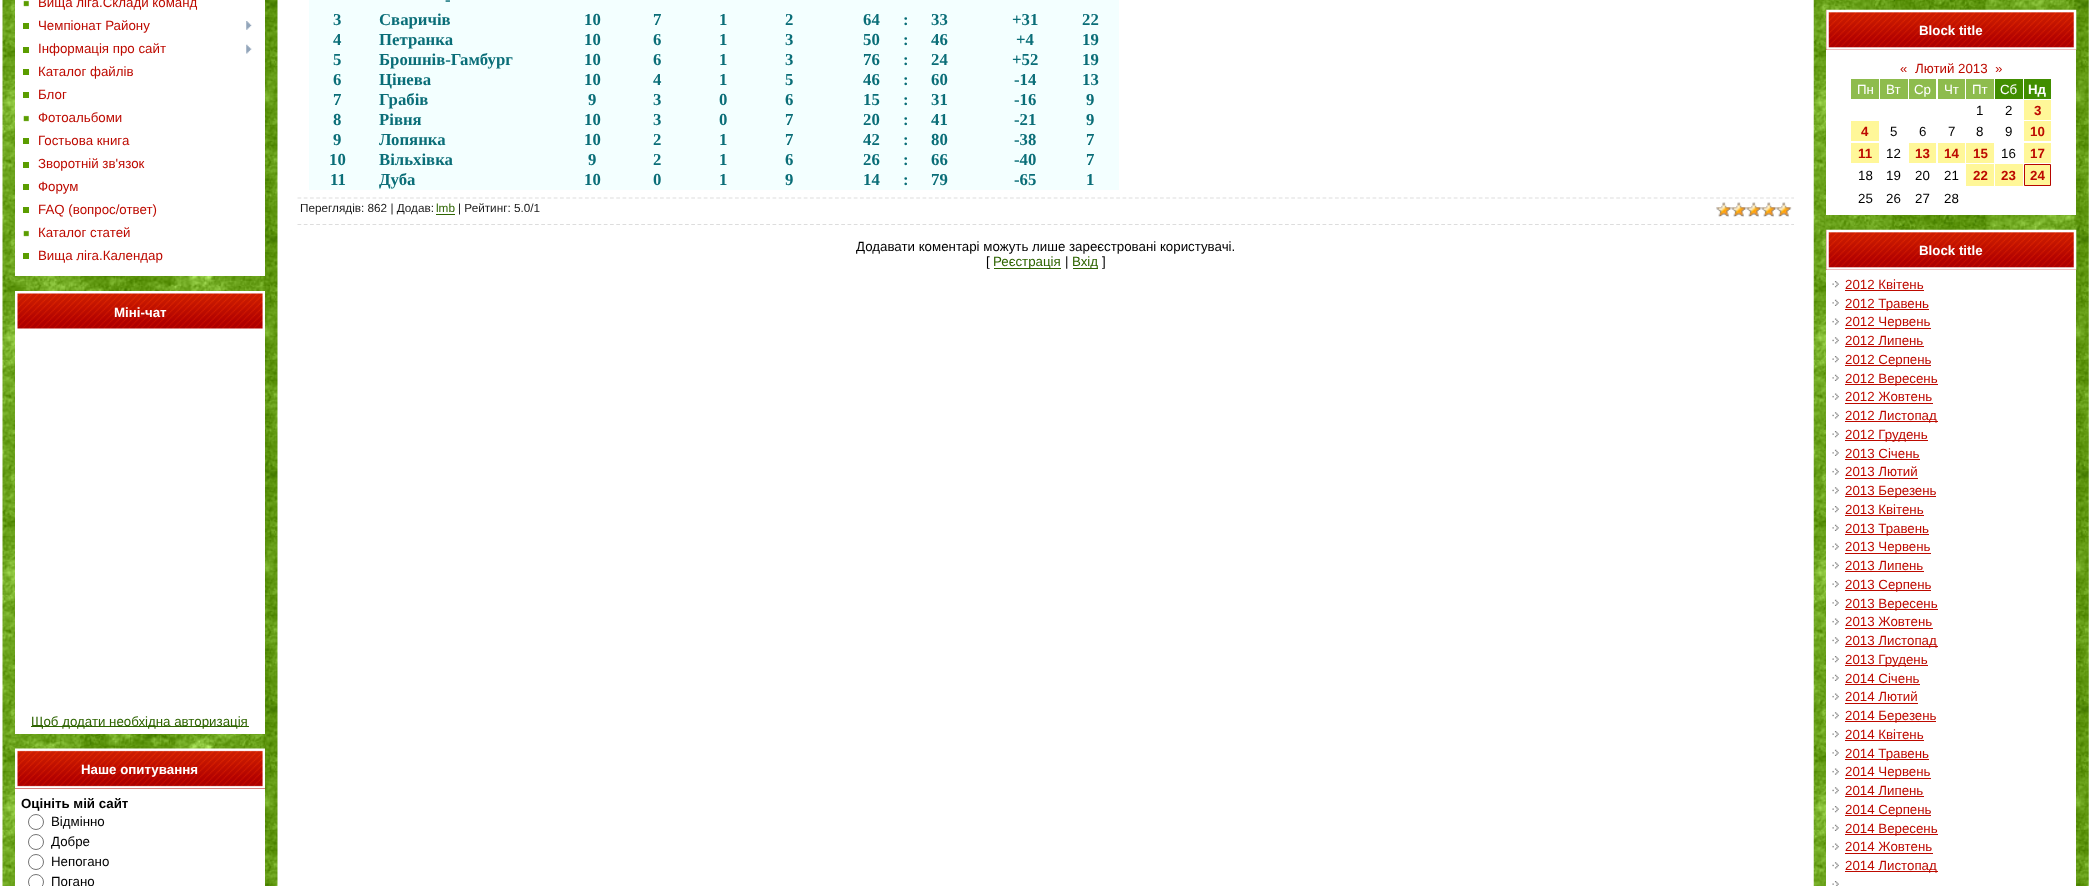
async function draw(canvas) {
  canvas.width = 2091;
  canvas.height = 886;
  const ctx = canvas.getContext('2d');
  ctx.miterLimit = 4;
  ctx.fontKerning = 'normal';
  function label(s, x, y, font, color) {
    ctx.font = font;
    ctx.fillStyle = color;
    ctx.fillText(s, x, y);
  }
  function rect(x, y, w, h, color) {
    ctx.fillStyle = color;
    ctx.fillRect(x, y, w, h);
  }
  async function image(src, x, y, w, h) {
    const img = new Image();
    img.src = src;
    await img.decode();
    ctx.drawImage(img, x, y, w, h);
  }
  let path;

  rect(0, 0, 2091, 886, '#fff');
  await image('assets/img1.png', 2, 0, 276, 886);
  rect(15, 0, 250, 276, '#fff');
  await image('assets/img2.png', 23, 0, 6, 7);
  label('Вища ліга.Склади команд', 38, 7, '13.3px Liberation Sans', '#bd0a00');
  rect(23, 23, 6, 6, '#5b9d00');
  label('Чемпіонат Району', 38, 30, '13.3px Liberation Sans', '#bd0a00');
  await image('assets/img3.png', 246, 21, 6, 9);
  rect(23, 47, 6, 6, '#5b9d00');
  label('Інформація про сайт', 38, 53, '13.3px Liberation Sans', '#bd0a00');
  await image('assets/img4.png', 246, 44, 6, 10);
  rect(23, 69, 6, 6, '#5b9d00');
  label('Каталог файлів', 38, 76, '13.3px Liberation Sans', '#bd0a00');
  rect(23, 92, 6, 6, '#5b9d00');
  label('Блог', 38, 99, '13.3px Liberation Sans', '#bd0a00');
  await image('assets/img2.png', 23, 115, 6, 7);
  label('Фотоальбоми', 38, 122, '13.3px Liberation Sans', '#bd0a00');
  rect(23, 138, 6, 6, '#5b9d00');
  label('Гостьова книга', 38, 145, '13.3px Liberation Sans', '#bd0a00');
  rect(23, 162, 6, 6, '#5b9d00');
  label('Зворотній зв\'язок', 38, 168, '13.3px Liberation Sans', '#bd0a00');
  rect(23, 184, 6, 6, '#5b9d00');
  label('Форум', 38, 191, '13.3px Liberation Sans', '#bd0a00');
  rect(23, 207, 6, 6, '#5b9d00');
  label('FAQ (вопрос/ответ)', 38, 214, '13.3px Liberation Sans', '#bd0a00');
  await image('assets/img2.png', 23, 230, 6, 7);
  label('Каталог статей', 38, 237, '13.3px Liberation Sans', '#bd0a00');
  rect(23, 253, 6, 6, '#5b9d00');
  label('Вища ліга.Календар', 38, 260, '13.3px Liberation Sans', '#bd0a00');
  await image('assets/img5.png', 15, 291, 250, 40);
  label('Міні-чат', 114, 317, 'bold 13.3px Liberation Sans', '#fff');
  rect(15, 331, 250, 403, '#fff');
  rect(31, 726, 218, 1, '#2e6400');
  label('Щоб додати необхідна авторизація', 31, 726, '13.3px Liberation Sans', '#2e6400');
  rect(15, 788, 250, 1, '#ae0000');
  await image('assets/img6.png', 15, 748, 250, 41);
  label('Наше опитування', 81, 774, 'bold 13.3px Liberation Sans', '#fff');
  rect(15, 789, 250, 97, '#fff');
  label('Оцініть мій сайт', 21, 808, 'bold 13.3px Liberation Sans', '#000');
  ctx.beginPath();
  ctx.arc(36, 822, 7.5, 0, 2 * Math.PI);
  ctx.strokeStyle = '#767676';
  ctx.stroke();
  label('Відмінно', 51, 826, '13.3px Liberation Sans', '#000');
  ctx.beginPath();
  ctx.arc(36, 842, 7.5, 0, 2 * Math.PI);
  ctx.stroke();
  label('Добре', 51, 846, '13.3px Liberation Sans', '#000');
  ctx.beginPath();
  ctx.arc(36, 862, 7.5, 0, 2 * Math.PI);
  ctx.stroke();
  label('Непогано', 51, 866, '13.3px Liberation Sans', '#000');
  ctx.beginPath();
  ctx.arc(36, 882, 7.5, 0, 2 * Math.PI);
  ctx.stroke();
  label('Погано', 51, 886, '13.3px Liberation Sans', '#000');
  rect(309, 0, 810, 10, '#f3ffff');
  label('-', 445, 5, 'bold 16.75px Liberation Serif', '#0a6e78');
  rect(309, 10, 810, 20, '#f3ffff');
  label('3', 333, 25, 'bold 16.75px Liberation Serif', '#0a6e78');
  label('Сваричів', 379, 25, 'bold 16.75px Liberation Serif', '#0a6e78');
  label('10', 584, 25, 'bold 16.75px Liberation Serif', '#0a6e78');
  label('7', 653, 25, 'bold 16.75px Liberation Serif', '#0a6e78');
  label('1', 719, 25, 'bold 16.75px Liberation Serif', '#0a6e78');
  label('2', 785, 25, 'bold 16.75px Liberation Serif', '#0a6e78');
  label('64', 863, 25, 'bold 16.75px Liberation Serif', '#0a6e78');
  label(':', 903, 25, 'bold 16.75px Liberation Serif', '#0a6e78');
  label('33', 931, 25, 'bold 16.75px Liberation Serif', '#0a6e78');
  label('+31', 1012, 25, 'bold 16.75px Liberation Serif', '#0a6e78');
  label('22', 1082, 25, 'bold 16.75px Liberation Serif', '#0a6e78');
  rect(309, 30, 810, 20, '#f3ffff');
  label('4', 333, 45, 'bold 16.75px Liberation Serif', '#0a6e78');
  label('Петранка', 379, 45, 'bold 16.75px Liberation Serif', '#0a6e78');
  label('10', 584, 45, 'bold 16.75px Liberation Serif', '#0a6e78');
  label('6', 653, 45, 'bold 16.75px Liberation Serif', '#0a6e78');
  label('1', 719, 45, 'bold 16.75px Liberation Serif', '#0a6e78');
  label('3', 785, 45, 'bold 16.75px Liberation Serif', '#0a6e78');
  label('50', 863, 45, 'bold 16.75px Liberation Serif', '#0a6e78');
  label(':', 903, 45, 'bold 16.75px Liberation Serif', '#0a6e78');
  label('46', 931, 45, 'bold 16.75px Liberation Serif', '#0a6e78');
  label('+4', 1016, 45, 'bold 16.75px Liberation Serif', '#0a6e78');
  label('19', 1082, 45, 'bold 16.75px Liberation Serif', '#0a6e78');
  rect(309, 50, 810, 20, '#f3ffff');
  label('5', 333, 65, 'bold 16.75px Liberation Serif', '#0a6e78');
  label('Брошнів-Гамбург', 379, 65, 'bold 16.75px Liberation Serif', '#0a6e78');
  label('10', 584, 65, 'bold 16.75px Liberation Serif', '#0a6e78');
  label('6', 653, 65, 'bold 16.75px Liberation Serif', '#0a6e78');
  label('1', 719, 65, 'bold 16.75px Liberation Serif', '#0a6e78');
  label('3', 785, 65, 'bold 16.75px Liberation Serif', '#0a6e78');
  label('76', 863, 65, 'bold 16.75px Liberation Serif', '#0a6e78');
  label(':', 903, 65, 'bold 16.75px Liberation Serif', '#0a6e78');
  label('24', 931, 65, 'bold 16.75px Liberation Serif', '#0a6e78');
  label('+52', 1012, 65, 'bold 16.75px Liberation Serif', '#0a6e78');
  label('19', 1082, 65, 'bold 16.75px Liberation Serif', '#0a6e78');
  rect(309, 70, 810, 20, '#f3ffff');
  label('6', 333, 85, 'bold 16.75px Liberation Serif', '#0a6e78');
  label('Цінева', 379, 85, 'bold 16.75px Liberation Serif', '#0a6e78');
  label('10', 584, 85, 'bold 16.75px Liberation Serif', '#0a6e78');
  label('4', 653, 85, 'bold 16.75px Liberation Serif', '#0a6e78');
  label('1', 719, 85, 'bold 16.75px Liberation Serif', '#0a6e78');
  label('5', 785, 85, 'bold 16.75px Liberation Serif', '#0a6e78');
  label('46', 863, 85, 'bold 16.75px Liberation Serif', '#0a6e78');
  label(':', 903, 85, 'bold 16.75px Liberation Serif', '#0a6e78');
  label('60', 931, 85, 'bold 16.75px Liberation Serif', '#0a6e78');
  label('-14', 1014, 85, 'bold 16.75px Liberation Serif', '#0a6e78');
  label('13', 1082, 85, 'bold 16.75px Liberation Serif', '#0a6e78');
  rect(309, 90, 810, 20, '#f3ffff');
  label('7', 333, 105, 'bold 16.75px Liberation Serif', '#0a6e78');
  label('Грабів', 379, 105, 'bold 16.75px Liberation Serif', '#0a6e78');
  label('9', 588, 105, 'bold 16.75px Liberation Serif', '#0a6e78');
  label('3', 653, 105, 'bold 16.75px Liberation Serif', '#0a6e78');
  label('0', 719, 105, 'bold 16.75px Liberation Serif', '#0a6e78');
  label('6', 785, 105, 'bold 16.75px Liberation Serif', '#0a6e78');
  label('15', 863, 105, 'bold 16.75px Liberation Serif', '#0a6e78');
  label(':', 903, 105, 'bold 16.75px Liberation Serif', '#0a6e78');
  label('31', 931, 105, 'bold 16.75px Liberation Serif', '#0a6e78');
  label('-16', 1014, 105, 'bold 16.75px Liberation Serif', '#0a6e78');
  label('9', 1086, 105, 'bold 16.75px Liberation Serif', '#0a6e78');
  rect(309, 110, 810, 20, '#f3ffff');
  label('8', 333, 125, 'bold 16.75px Liberation Serif', '#0a6e78');
  label('Рівня', 379, 125, 'bold 16.75px Liberation Serif', '#0a6e78');
  label('10', 584, 125, 'bold 16.75px Liberation Serif', '#0a6e78');
  label('3', 653, 125, 'bold 16.75px Liberation Serif', '#0a6e78');
  label('0', 719, 125, 'bold 16.75px Liberation Serif', '#0a6e78');
  label('7', 785, 125, 'bold 16.75px Liberation Serif', '#0a6e78');
  label('20', 863, 125, 'bold 16.75px Liberation Serif', '#0a6e78');
  label(':', 903, 125, 'bold 16.75px Liberation Serif', '#0a6e78');
  label('41', 931, 125, 'bold 16.75px Liberation Serif', '#0a6e78');
  label('-21', 1014, 125, 'bold 16.75px Liberation Serif', '#0a6e78');
  label('9', 1086, 125, 'bold 16.75px Liberation Serif', '#0a6e78');
  rect(309, 130, 810, 20, '#f3ffff');
  label('9', 333, 145, 'bold 16.75px Liberation Serif', '#0a6e78');
  label('Лопянка', 379, 145, 'bold 16.75px Liberation Serif', '#0a6e78');
  label('10', 584, 145, 'bold 16.75px Liberation Serif', '#0a6e78');
  label('2', 653, 145, 'bold 16.75px Liberation Serif', '#0a6e78');
  label('1', 719, 145, 'bold 16.75px Liberation Serif', '#0a6e78');
  label('7', 785, 145, 'bold 16.75px Liberation Serif', '#0a6e78');
  label('42', 863, 145, 'bold 16.75px Liberation Serif', '#0a6e78');
  label(':', 903, 145, 'bold 16.75px Liberation Serif', '#0a6e78');
  label('80', 931, 145, 'bold 16.75px Liberation Serif', '#0a6e78');
  label('-38', 1014, 145, 'bold 16.75px Liberation Serif', '#0a6e78');
  label('7', 1086, 145, 'bold 16.75px Liberation Serif', '#0a6e78');
  rect(309, 150, 810, 20, '#f3ffff');
  label('10', 329, 165, 'bold 16.75px Liberation Serif', '#0a6e78');
  label('Вільхівка', 379, 165, 'bold 16.75px Liberation Serif', '#0a6e78');
  label('9', 588, 165, 'bold 16.75px Liberation Serif', '#0a6e78');
  label('2', 653, 165, 'bold 16.75px Liberation Serif', '#0a6e78');
  label('1', 719, 165, 'bold 16.75px Liberation Serif', '#0a6e78');
  label('6', 785, 165, 'bold 16.75px Liberation Serif', '#0a6e78');
  label('26', 863, 165, 'bold 16.75px Liberation Serif', '#0a6e78');
  label(':', 903, 165, 'bold 16.75px Liberation Serif', '#0a6e78');
  label('66', 931, 165, 'bold 16.75px Liberation Serif', '#0a6e78');
  label('-40', 1014, 165, 'bold 16.75px Liberation Serif', '#0a6e78');
  label('7', 1086, 165, 'bold 16.75px Liberation Serif', '#0a6e78');
  rect(309, 170, 810, 20, '#f3ffff');
  label('11', 330, 185, 'bold 16.75px Liberation Serif', '#0a6e78');
  label('Дуба', 379, 185, 'bold 16.75px Liberation Serif', '#0a6e78');
  label('10', 584, 185, 'bold 16.75px Liberation Serif', '#0a6e78');
  label('0', 653, 185, 'bold 16.75px Liberation Serif', '#0a6e78');
  label('1', 719, 185, 'bold 16.75px Liberation Serif', '#0a6e78');
  label('9', 785, 185, 'bold 16.75px Liberation Serif', '#0a6e78');
  label('14', 863, 185, 'bold 16.75px Liberation Serif', '#0a6e78');
  label(':', 903, 185, 'bold 16.75px Liberation Serif', '#0a6e78');
  label('79', 931, 185, 'bold 16.75px Liberation Serif', '#0a6e78');
  label('-65', 1014, 185, 'bold 16.75px Liberation Serif', '#0a6e78');
  label('1', 1086, 185, 'bold 16.75px Liberation Serif', '#0a6e78');
  path = new Path2D('M297.5 198H1794');
  ctx.strokeStyle = '#ddd';
  ctx.lineWidth = 1.2;
  ctx.setLineDash([3.75, 2.5]);
  ctx.stroke(path);
  path = new Path2D('M297.5 224.5H1794');
  ctx.stroke(path);
  label('Переглядів: 862 | Додав:', 300, 212, '11.75px Liberation Sans', '#1a1a1a');
  label('lmb', 436, 212, '11.75px Liberation Sans', '#2e6400');
  rect(436, 214, 19, 1, '#2e6400');
  label('| Рейтинг: 5.0/1', 458, 212, '11.75px Liberation Sans', '#1a1a1a');
  await image('assets/img7.png', 1716, 202, 75, 16);
  await image('assets/img8.png', 1716, 202, 76, 15);
  label('Додавати коментарі можуть лише зареєстровані користувачі.', 856, 251, '13.3px Liberation Sans', '#000');
  label('[', 986, 266, '13.3px Liberation Sans', '#000');
  rect(994, 268, 67, 1, '#2e6400');
  label('Реєстрація', 993, 266, '13.3px Liberation Sans', '#2e6400');
  label('|', 1065, 266, '13.3px Liberation Sans', '#000');
  rect(1073, 268, 25, 1, '#2e6400');
  label('Вхід', 1072, 266, '13.3px Liberation Sans', '#2e6400');
  label(']', 1102, 266, '13.3px Liberation Sans', '#000');
  await image('assets/img9.png', 1813, 0, 276, 886);
  rect(1826, 10, 250, 40, '#ae0000');
  await image('assets/img10.png', 1826, 9, 251, 41);
  label('Block title', 1919, 35, 'bold 13.3px Liberation Sans', '#fff');
  rect(1826, 50, 250, 165, '#fff');
  label('«', 1900, 73, '13.3px Liberation Sans', '#bd0a00');
  label('Лютий 2013', 1915, 73, '13.3px Liberation Sans', '#bd0a00');
  label('»', 1995, 73, '13.3px Liberation Sans', '#bd0a00');
  rect(1851, 79, 28, 20, '#8ebc4d');
  label('Пн', 1857, 94, '13.3px Liberation Sans', '#fff');
  rect(1880, 79, 28, 20, '#8ebc4d');
  label('Вт', 1886, 94, '13.3px Liberation Sans', '#fff');
  rect(1909, 79, 27, 20, '#8ebc4d');
  label('Ср', 1914, 94, '13.3px Liberation Sans', '#fff');
  rect(1938, 79, 27, 20, '#8ebc4d');
  label('Чт', 1944, 94, '13.3px Liberation Sans', '#fff');
  rect(1966, 79, 28, 20, '#8ebc4d');
  label('Пт', 1972, 94, '13.3px Liberation Sans', '#fff');
  rect(1995, 79, 28, 20, '#418e00');
  label('Сб', 2000, 94, '13.3px Liberation Sans', '#fff');
  rect(2024, 79, 27, 20, '#418e00');
  label('Нд', 2028, 94, 'bold 13.3px Liberation Sans', '#fff');
  label('1', 1976, 115, '13.3px Liberation Sans', '#000');
  label('2', 2005, 115, '13.3px Liberation Sans', '#000');
  rect(2024, 100, 27, 20, '#fff799');
  label('3', 2034, 115, 'bold 13.3px Liberation Sans', '#bd0a00');
  rect(1851, 121, 28, 20, '#fff799');
  label('4', 1861, 136, 'bold 13.3px Liberation Sans', '#bd0a00');
  label('5', 1890, 136, '13.3px Liberation Sans', '#000');
  label('6', 1919, 136, '13.3px Liberation Sans', '#000');
  label('7', 1948, 136, '13.3px Liberation Sans', '#000');
  label('8', 1976, 136, '13.3px Liberation Sans', '#000');
  label('9', 2005, 136, '13.3px Liberation Sans', '#000');
  rect(2024, 121, 27, 20, '#fff799');
  label('10', 2030, 136, 'bold 13.3px Liberation Sans', '#bd0a00');
  rect(1851, 143, 28, 20, '#fff799');
  label('11', 1858, 158, 'bold 13.3px Liberation Sans', '#bd0a00');
  label('12', 1886, 158, '13.3px Liberation Sans', '#000');
  rect(1909, 143, 27, 20, '#fff799');
  label('13', 1915, 158, 'bold 13.3px Liberation Sans', '#bd0a00');
  rect(1938, 143, 27, 20, '#fff799');
  label('14', 1944, 158, 'bold 13.3px Liberation Sans', '#bd0a00');
  rect(1966, 143, 28, 20, '#fff799');
  label('15', 1973, 158, 'bold 13.3px Liberation Sans', '#bd0a00');
  label('16', 2001, 158, '13.3px Liberation Sans', '#000');
  rect(2024, 143, 27, 20, '#fff799');
  label('17', 2030, 158, 'bold 13.3px Liberation Sans', '#bd0a00');
  label('18', 1858, 180, '13.3px Liberation Sans', '#000');
  label('19', 1886, 180, '13.3px Liberation Sans', '#000');
  label('20', 1915, 180, '13.3px Liberation Sans', '#000');
  label('21', 1944, 180, '13.3px Liberation Sans', '#000');
  rect(1966, 164, 28, 22, '#fff799');
  label('22', 1973, 180, 'bold 13.3px Liberation Sans', '#bd0a00');
  rect(1995, 164, 28, 22, '#fff799');
  label('23', 2001, 180, 'bold 13.3px Liberation Sans', '#bd0a00');
  ctx.fillStyle = '#fff799';
  ctx.beginPath();
  ctx.rect(2024.5, 164.5, 26, 21);
  ctx.fill();
  ctx.strokeStyle = '#b60600';
  ctx.lineWidth = 1;
  ctx.setLineDash([]);
  ctx.stroke();
  label('24', 2030, 180, 'bold 13.3px Liberation Sans', '#bd0a00');
  label('25', 1858, 203, '13.3px Liberation Sans', '#000');
  label('26', 1886, 203, '13.3px Liberation Sans', '#000');
  label('27', 1915, 203, '13.3px Liberation Sans', '#000');
  label('28', 1944, 203, '13.3px Liberation Sans', '#000');
  rect(1826, 230, 250, 40, '#ae0000');
  await image('assets/img11.png', 1826, 229, 251, 41);
  label('Block title', 1919, 255, 'bold 13.3px Liberation Sans', '#fff');
  rect(1826, 270, 250, 616, '#fff');
  await image('assets/img12.png', 1832, 281, 7, 7);
  label('2012 Квітень', 1845, 289, '13.3px Liberation Sans', '#bd0a00');
  rect(1845, 290, 79, 1, '#bd0a00');
  await image('assets/img13.png', 1832, 299, 7, 7);
  rect(1845, 309, 84, 1, '#bd0a00');
  label('2012 Травень', 1845, 308, '13.3px Liberation Sans', '#bd0a00');
  await image('assets/img14.png', 1832, 318, 7, 7);
  rect(1845, 328, 86, 1, '#bd0a00');
  label('2012 Червень', 1845, 326, '13.3px Liberation Sans', '#bd0a00');
  await image('assets/img15.png', 1832, 337, 7, 7);
  label('2012 Липень', 1845, 345, '13.3px Liberation Sans', '#bd0a00');
  rect(1845, 346, 79, 1, '#bd0a00');
  await image('assets/img12.png', 1832, 356, 7, 7);
  rect(1845, 365, 86, 1, '#bd0a00');
  label('2012 Серпень', 1845, 364, '13.3px Liberation Sans', '#bd0a00');
  await image('assets/img13.png', 1832, 374, 7, 7);
  rect(1845, 384, 93, 1, '#bd0a00');
  label('2012 Вересень', 1845, 383, '13.3px Liberation Sans', '#bd0a00');
  await image('assets/img14.png', 1832, 393, 7, 7);
  label('2012 Жовтень', 1845, 401, '13.3px Liberation Sans', '#bd0a00');
  rect(1845, 403, 88, 1, '#bd0a00');
  await image('assets/img15.png', 1832, 412, 7, 7);
  rect(1845, 421, 93, 1, '#bd0a00');
  label('2012 Листопад', 1845, 420, '13.3px Liberation Sans', '#bd0a00');
  await image('assets/img12.png', 1832, 431, 7, 7);
  rect(1845, 440, 83, 1, '#bd0a00');
  label('2012 Грудень', 1845, 439, '13.3px Liberation Sans', '#bd0a00');
  await image('assets/img13.png', 1832, 449, 7, 7);
  label('2013 Січень', 1845, 458, '13.3px Liberation Sans', '#bd0a00');
  rect(1845, 459, 75, 1, '#bd0a00');
  await image('assets/img14.png', 1832, 468, 7, 7);
  label('2013 Лютий', 1845, 476, '13.3px Liberation Sans', '#bd0a00');
  rect(1845, 478, 73, 1, '#bd0a00');
  await image('assets/img15.png', 1832, 487, 7, 7);
  rect(1845, 496, 91, 1, '#bd0a00');
  label('2013 Березень', 1845, 495, '13.3px Liberation Sans', '#bd0a00');
  await image('assets/img12.png', 1832, 506, 7, 7);
  label('2013 Квітень', 1845, 514, '13.3px Liberation Sans', '#bd0a00');
  rect(1845, 515, 79, 1, '#bd0a00');
  await image('assets/img13.png', 1832, 524, 7, 7);
  rect(1845, 534, 84, 1, '#bd0a00');
  label('2013 Травень', 1845, 533, '13.3px Liberation Sans', '#bd0a00');
  await image('assets/img14.png', 1832, 543, 7, 7);
  rect(1845, 553, 86, 1, '#bd0a00');
  label('2013 Червень', 1845, 551, '13.3px Liberation Sans', '#bd0a00');
  await image('assets/img15.png', 1832, 562, 7, 7);
  label('2013 Липень', 1845, 570, '13.3px Liberation Sans', '#bd0a00');
  rect(1845, 571, 79, 1, '#bd0a00');
  await image('assets/img12.png', 1832, 581, 7, 7);
  rect(1845, 590, 86, 1, '#bd0a00');
  label('2013 Серпень', 1845, 589, '13.3px Liberation Sans', '#bd0a00');
  await image('assets/img13.png', 1832, 599, 7, 7);
  rect(1845, 609, 93, 1, '#bd0a00');
  label('2013 Вересень', 1845, 608, '13.3px Liberation Sans', '#bd0a00');
  await image('assets/img14.png', 1832, 618, 7, 7);
  label('2013 Жовтень', 1845, 626, '13.3px Liberation Sans', '#bd0a00');
  rect(1845, 628, 88, 1, '#bd0a00');
  await image('assets/img15.png', 1832, 637, 7, 7);
  rect(1845, 646, 93, 1, '#bd0a00');
  label('2013 Листопад', 1845, 645, '13.3px Liberation Sans', '#bd0a00');
  await image('assets/img12.png', 1832, 656, 7, 7);
  rect(1845, 665, 83, 1, '#bd0a00');
  label('2013 Грудень', 1845, 664, '13.3px Liberation Sans', '#bd0a00');
  await image('assets/img13.png', 1832, 674, 7, 7);
  label('2014 Січень', 1845, 683, '13.3px Liberation Sans', '#bd0a00');
  rect(1845, 684, 75, 1, '#bd0a00');
  await image('assets/img14.png', 1832, 693, 7, 7);
  label('2014 Лютий', 1845, 701, '13.3px Liberation Sans', '#bd0a00');
  rect(1845, 703, 73, 1, '#bd0a00');
  await image('assets/img15.png', 1832, 712, 7, 7);
  rect(1845, 721, 91, 1, '#bd0a00');
  label('2014 Березень', 1845, 720, '13.3px Liberation Sans', '#bd0a00');
  await image('assets/img12.png', 1832, 731, 7, 7);
  label('2014 Квітень', 1845, 739, '13.3px Liberation Sans', '#bd0a00');
  rect(1845, 740, 79, 1, '#bd0a00');
  await image('assets/img13.png', 1832, 749, 7, 7);
  rect(1845, 759, 84, 1, '#bd0a00');
  label('2014 Травень', 1845, 758, '13.3px Liberation Sans', '#bd0a00');
  await image('assets/img14.png', 1832, 768, 7, 7);
  rect(1845, 778, 86, 1, '#bd0a00');
  label('2014 Червень', 1845, 776, '13.3px Liberation Sans', '#bd0a00');
  await image('assets/img15.png', 1832, 787, 7, 7);
  label('2014 Липень', 1845, 795, '13.3px Liberation Sans', '#bd0a00');
  rect(1845, 796, 79, 1, '#bd0a00');
  await image('assets/img12.png', 1832, 806, 7, 7);
  rect(1845, 815, 86, 1, '#bd0a00');
  label('2014 Серпень', 1845, 814, '13.3px Liberation Sans', '#bd0a00');
  await image('assets/img13.png', 1832, 824, 7, 7);
  rect(1845, 834, 93, 1, '#bd0a00');
  label('2014 Вересень', 1845, 833, '13.3px Liberation Sans', '#bd0a00');
  await image('assets/img14.png', 1832, 843, 7, 7);
  label('2014 Жовтень', 1845, 851, '13.3px Liberation Sans', '#bd0a00');
  rect(1845, 853, 88, 1, '#bd0a00');
  await image('assets/img15.png', 1832, 862, 7, 7);
  rect(1845, 871, 93, 1, '#bd0a00');
  label('2014 Листопад', 1845, 870, '13.3px Liberation Sans', '#bd0a00');
  await image('assets/img16.png', 1832, 881, 7, 5);
}

draw(document.querySelector('canvas'));
